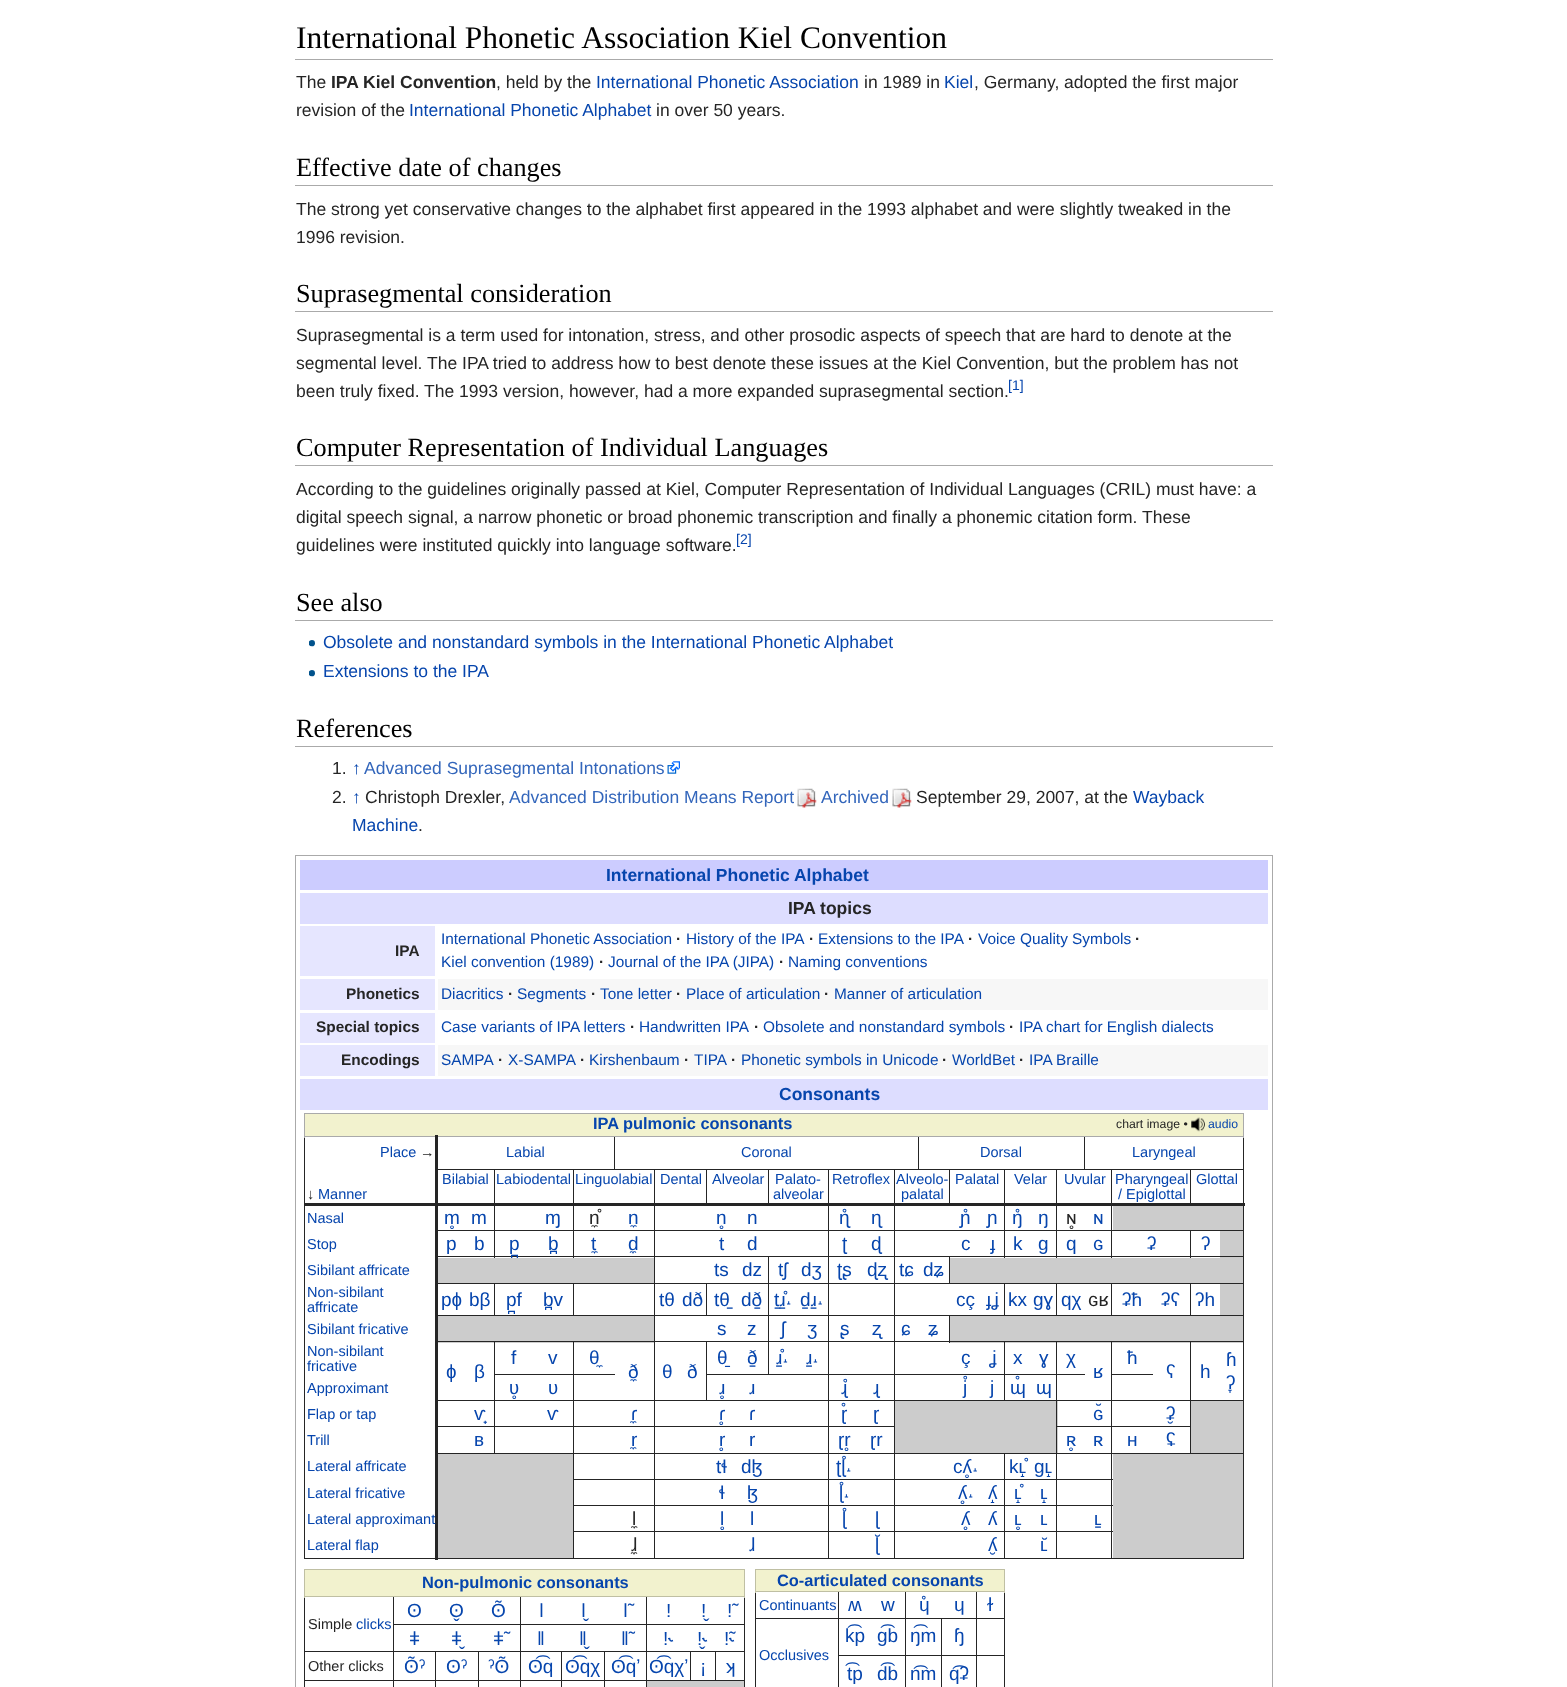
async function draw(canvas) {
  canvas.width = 1567;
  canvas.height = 1687;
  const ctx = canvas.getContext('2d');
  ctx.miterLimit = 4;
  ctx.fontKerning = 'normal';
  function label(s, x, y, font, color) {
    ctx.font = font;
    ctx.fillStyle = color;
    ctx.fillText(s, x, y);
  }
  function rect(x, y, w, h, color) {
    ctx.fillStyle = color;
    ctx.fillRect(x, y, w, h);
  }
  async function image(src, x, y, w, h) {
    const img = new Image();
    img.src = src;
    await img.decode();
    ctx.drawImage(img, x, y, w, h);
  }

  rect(0, 0, 1567, 1687, '#fff');
  rect(295, 59, 978, 1, '#aaa');
  label('International Phonetic Association Kiel Convention', 296, 48, '31.5px Liberation Serif', '#000');
  label('The', 296, 88, '17.5px Liberation Sans', '#252525');
  label('IPA Kiel Convention', 331, 88, 'bold 17.5px Liberation Sans', '#252525');
  label(', held by the', 496, 88, '17.5px Liberation Sans', '#252525');
  label('International Phonetic Association', 596, 88, '17.5px Liberation Sans', '#0645ad');
  label('in 1989 in', 864, 88, '17.5px Liberation Sans', '#252525');
  label('Kiel', 944, 88, '17.5px Liberation Sans', '#0645ad');
  label(', Germany, adopted the first major', 974, 88, '17.5px Liberation Sans', '#252525');
  label('revision of the', 296, 116, '17.5px Liberation Sans', '#252525');
  label('International Phonetic Alphabet', 409, 116, '17.5px Liberation Sans', '#0645ad');
  label('in over 50 years.', 656, 116, '17.5px Liberation Sans', '#252525');
  rect(295, 185, 978, 1, '#aaa');
  label('Effective date of changes', 296, 176, '26.25px Liberation Serif', '#000');
  label('The strong yet conservative changes to the alphabet first appeared in the 1993 alphabet and were slightly tweaked in the', 296, 215, '17.5px Liberation Sans', '#252525');
  label('1996 revision.', 296, 243, '17.5px Liberation Sans', '#252525');
  rect(295, 311, 978, 1, '#aaa');
  label('Suprasegmental consideration', 296, 302, '26.25px Liberation Serif', '#000');
  label('Suprasegmental is a term used for intonation, stress, and other prosodic aspects of speech that are hard to denote at the', 296, 341, '17.5px Liberation Sans', '#252525');
  label('segmental level.', 296, 369, '17.5px Liberation Sans', '#252525');
  label('The IPA tried to address how to best denote these issues at the Kiel Convention, but the problem has not', 427, 369, '17.5px Liberation Sans', '#252525');
  label('been truly fixed. The 1993 version, however, had a more expanded suprasegmental section.', 296, 397, '17.5px Liberation Sans', '#252525');
  label('[1]', 1008, 390, '14px Liberation Sans', '#0645ad');
  rect(295, 465, 978, 1, '#aaa');
  label('Computer Representation of Individual Languages', 296, 456, '26.25px Liberation Serif', '#000');
  label('According to the guidelines originally passed at Kiel, Computer Representation of Individual Languages (CRIL) must have: a', 296, 495, '17.5px Liberation Sans', '#252525');
  label('digital speech signal, a narrow phonetic or broad phonemic transcription and finally a phonemic citation form. These', 296, 523, '17.5px Liberation Sans', '#252525');
  label('guidelines were instituted quickly into language software.', 296, 551, '17.5px Liberation Sans', '#252525');
  label('[2]', 736, 544, '14px Liberation Sans', '#0645ad');
  rect(295, 620, 978, 1, '#aaa');
  label('See also', 296, 611, '26.25px Liberation Serif', '#000');
  await image('assets/img1.png', 309, 640, 6, 7);
  label('Obsolete and nonstandard symbols in the International Phonetic Alphabet', 323, 648, '17.5px Liberation Sans', '#0645ad');
  await image('assets/img1.png', 309, 670, 6, 7);
  label('Extensions to the IPA', 323, 677, '17.5px Liberation Sans', '#0645ad');
  rect(295, 746, 978, 1, '#aaa');
  label('References', 296, 737, '26.25px Liberation Serif', '#000');
  label('1.', 332, 774, '17.5px Liberation Sans', '#252525');
  label('↑', 352, 774, '17.5px Liberation Sans', '#0645ad');
  label('Advanced Suprasegmental Intonations', 364, 774, '17.5px Liberation Sans', '#36b');
  await image('assets/img2.png', 667, 761, 13, 13);
  label('2.', 332, 803, '17.5px Liberation Sans', '#252525');
  label('↑', 352, 803, '17.5px Liberation Sans', '#0645ad');
  label('Christoph Drexler,', 365, 803, '17.5px Liberation Sans', '#252525');
  label('Advanced Distribution Means Report', 509, 803, '17.5px Liberation Sans', '#36b');
  await image('assets/img3.png', 797, 788, 20, 20);
  label('Archived', 821, 803, '17.5px Liberation Sans', '#36b');
  await image('assets/img3.png', 892, 788, 20, 20);
  label('September 29, 2007, at the', 916, 803, '17.5px Liberation Sans', '#252525');
  label('Wayback', 1133, 803, '17.5px Liberation Sans', '#0645ad');
  label('Machine', 352, 831, '17.5px Liberation Sans', '#0645ad');
  label('.', 418, 831, '17.5px Liberation Sans', '#252525');
  ctx.strokeStyle = '#aaa';
  ctx.strokeRect(295.5, 855.5, 977, 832);
  rect(300, 860, 968, 30, '#ccf');
  label('International Phonetic Alphabet', 606, 881, 'bold 17.5px Liberation Sans', '#0645ad');
  rect(300, 893, 968, 31, '#ddf');
  label('IPA topics', 788, 914, 'bold 17.5px Liberation Sans', '#252525');
  rect(300, 926, 135, 50, '#e6e6ff');
  label('IPA', 395, 956, 'bold 15.4px Liberation Sans', '#252525');
  label('International Phonetic Association', 441, 944, '15.4px Liberation Sans', '#0645ad');
  label('·', 676, 944, 'bold 15.4px Liberation Sans', '#252525');
  label('History of the IPA', 686, 944, '15.4px Liberation Sans', '#0645ad');
  label('·', 809, 944, 'bold 15.4px Liberation Sans', '#252525');
  label('Extensions to the IPA', 818, 944, '15.4px Liberation Sans', '#0645ad');
  label('·', 968, 944, 'bold 15.4px Liberation Sans', '#252525');
  label('Voice Quality Symbols', 978, 944, '15.4px Liberation Sans', '#0645ad');
  label('·', 1135, 944, 'bold 15.4px Liberation Sans', '#252525');
  label('Kiel convention (1989)', 441, 967, '15.4px Liberation Sans', '#0645ad');
  label('·', 599, 967, 'bold 15.4px Liberation Sans', '#252525');
  label('Journal of the IPA (JIPA)', 608, 967, '15.4px Liberation Sans', '#0645ad');
  label('·', 779, 967, 'bold 15.4px Liberation Sans', '#252525');
  label('Naming conventions', 788, 967, '15.4px Liberation Sans', '#0645ad');
  rect(300, 979, 135, 31, '#e6e6ff');
  label('Phonetics', 346, 999, 'bold 15.4px Liberation Sans', '#252525');
  rect(438, 979, 830, 31, '#f7f7f7');
  label('Diacritics', 441, 999, '15.4px Liberation Sans', '#0645ad');
  label('·', 508, 999, 'bold 15.4px Liberation Sans', '#252525');
  label('Segments', 517, 999, '15.4px Liberation Sans', '#0645ad');
  label('·', 591, 999, 'bold 15.4px Liberation Sans', '#252525');
  label('Tone letter', 600, 999, '15.4px Liberation Sans', '#0645ad');
  label('·', 676, 999, 'bold 15.4px Liberation Sans', '#252525');
  label('Place of articulation', 686, 999, '15.4px Liberation Sans', '#0645ad');
  label('·', 824, 999, 'bold 15.4px Liberation Sans', '#252525');
  label('Manner of articulation', 834, 999, '15.4px Liberation Sans', '#0645ad');
  rect(300, 1013, 135, 30, '#e6e6ff');
  label('Special topics', 316, 1032, 'bold 15.4px Liberation Sans', '#252525');
  label('Case variants of IPA letters', 441, 1032, '15.4px Liberation Sans', '#0645ad');
  label('·', 630, 1032, 'bold 15.4px Liberation Sans', '#252525');
  label('Handwritten IPA', 639, 1032, '15.4px Liberation Sans', '#0645ad');
  label('·', 754, 1032, 'bold 15.4px Liberation Sans', '#252525');
  label('Obsolete and nonstandard symbols', 763, 1032, '15.4px Liberation Sans', '#0645ad');
  label('·', 1009, 1032, 'bold 15.4px Liberation Sans', '#252525');
  label('IPA chart for English dialects', 1019, 1032, '15.4px Liberation Sans', '#0645ad');
  rect(300, 1045, 135, 31, '#e6e6ff');
  label('Encodings', 341, 1065, 'bold 15.4px Liberation Sans', '#252525');
  rect(438, 1045, 830, 31, '#f7f7f7');
  label('SAMPA', 441, 1065, '15.4px Liberation Sans', '#0645ad');
  label('·', 498, 1065, 'bold 15.4px Liberation Sans', '#252525');
  label('X-SAMPA', 508, 1065, '15.4px Liberation Sans', '#0645ad');
  label('·', 580, 1065, 'bold 15.4px Liberation Sans', '#252525');
  label('Kirshenbaum', 589, 1065, '15.4px Liberation Sans', '#0645ad');
  label('·', 684, 1065, 'bold 15.4px Liberation Sans', '#252525');
  label('TIPA', 694, 1065, '15.4px Liberation Sans', '#0645ad');
  label('·', 731, 1065, 'bold 15.4px Liberation Sans', '#252525');
  label('Phonetic symbols in Unicode', 741, 1065, '15.4px Liberation Sans', '#0645ad');
  label('·', 942, 1065, 'bold 15.4px Liberation Sans', '#252525');
  label('WorldBet', 952, 1065, '15.4px Liberation Sans', '#0645ad');
  label('·', 1019, 1065, 'bold 15.4px Liberation Sans', '#252525');
  label('IPA Braille', 1029, 1065, '15.4px Liberation Sans', '#0645ad');
  rect(300, 1079, 968, 31, '#ddf');
  label('Consonants', 779, 1100, 'bold 17.5px Liberation Sans', '#0645ad');
  rect(305, 1114, 938, 22, '#f2f2ce');
  rect(304, 1113, 940, 1, '#aaa');
  rect(1190, 1230, 54, 1, '#252525');
  rect(1220, 1231, 23, 27, '#ccc');
  rect(949, 1256, 295, 1, '#252525');
  rect(1190, 1283, 54, 1, '#252525');
  rect(949, 1315, 295, 1, '#252525');
  rect(950, 1316, 293, 27, '#ccc');
  rect(1190, 1341, 54, 1, '#252525');
  rect(1190, 1400, 54, 1, '#252525');
  rect(1111, 1453, 133, 1, '#252525');
  rect(1243, 1453, 1, 106, '#252525');
  rect(1243, 1400, 1, 54, '#252525');
  rect(1243, 1341, 1, 60, '#252525');
  rect(1243, 1315, 1, 28, '#252525');
  rect(1243, 1283, 1, 33, '#252525');
  rect(1243, 1256, 1, 28, '#252525');
  rect(1243, 1136, 1, 122, '#252525');
  rect(1243, 1113, 1, 25, '#aaa');
  rect(1190, 1169, 1, 36, '#252525');
  rect(1190, 1230, 1, 28, '#252525');
  rect(1111, 1230, 80, 1, '#252525');
  rect(1111, 1230, 1, 28, '#252525');
  rect(1056, 1230, 57, 1, '#252525');
  rect(1111, 1169, 1, 62, '#252525');
  rect(1084, 1169, 160, 1, '#252525');
  rect(1084, 1136, 1, 34, '#252525');
  rect(949, 1169, 1, 36, '#252525');
  rect(1056, 1230, 1, 28, '#252525');
  rect(1004, 1230, 54, 1, '#252525');
  rect(1004, 1230, 1, 28, '#252525');
  rect(894, 1230, 111, 1, '#252525');
  rect(1004, 1169, 1, 62, '#252525');
  rect(1056, 1169, 1, 62, '#252525');
  rect(918, 1169, 167, 1, '#252525');
  rect(918, 1136, 1, 34, '#252525');
  rect(706, 1169, 1, 36, '#252525');
  rect(768, 1169, 1, 36, '#252525');
  rect(1190, 1283, 1, 33, '#252525');
  rect(1111, 1283, 80, 1, '#252525');
  rect(1111, 1283, 1, 33, '#252525');
  rect(1056, 1283, 57, 1, '#252525');
  rect(1056, 1283, 1, 33, '#252525');
  rect(1004, 1283, 54, 1, '#252525');
  rect(1004, 1283, 1, 33, '#252525');
  rect(894, 1283, 111, 1, '#252525');
  rect(949, 1256, 1, 28, '#252525');
  rect(894, 1256, 56, 1, '#252525');
  rect(1111, 1426, 80, 1, '#252525');
  rect(1190, 1400, 1, 54, '#252525');
  rect(1111, 1400, 80, 1, '#252525');
  rect(1190, 1341, 1, 60, '#252525');
  rect(1111, 1341, 80, 1, '#252525');
  rect(1111, 1374, 42, 1, '#252525');
  rect(895, 1401, 163, 52, '#ccc');
  rect(1056, 1558, 57, 1, '#252525');
  rect(1111, 1558, 133, 1, '#252525');
  rect(1056, 1479, 57, 1, '#252525');
  rect(1056, 1505, 57, 1, '#252525');
  rect(1056, 1531, 57, 1, '#252525');
  rect(1111, 1453, 1, 106, '#252525');
  rect(1056, 1453, 57, 1, '#252525');
  rect(1111, 1426, 1, 28, '#252525');
  rect(1056, 1426, 57, 1, '#252525');
  rect(1111, 1400, 1, 28, '#252525');
  rect(1056, 1400, 57, 1, '#252525');
  rect(1111, 1374, 1, 27, '#252525');
  rect(1111, 1341, 1, 34, '#252525');
  rect(1056, 1341, 57, 1, '#252525');
  rect(1056, 1374, 29, 1, '#252525');
  rect(1056, 1531, 1, 28, '#252525');
  rect(1004, 1531, 54, 1, '#252525');
  rect(1056, 1505, 1, 28, '#252525');
  rect(1004, 1505, 54, 1, '#252525');
  rect(1056, 1479, 1, 27, '#252525');
  rect(1004, 1479, 54, 1, '#252525');
  rect(1056, 1453, 1, 27, '#252525');
  rect(1004, 1453, 54, 1, '#252525');
  rect(1056, 1426, 1, 28, '#252525');
  rect(1056, 1400, 1, 28, '#252525');
  rect(894, 1400, 164, 1, '#252525');
  rect(1056, 1374, 1, 27, '#252525');
  rect(1004, 1374, 54, 1, '#252525');
  rect(1056, 1341, 1, 34, '#252525');
  rect(1004, 1341, 54, 1, '#252525');
  rect(1004, 1374, 1, 27, '#252525');
  rect(894, 1374, 111, 1, '#252525');
  rect(1004, 1341, 1, 34, '#252525');
  rect(894, 1341, 111, 1, '#252525');
  rect(949, 1315, 1, 28, '#252525');
  rect(894, 1315, 56, 1, '#252525');
  rect(828, 1426, 67, 1, '#252525');
  rect(1004, 1558, 54, 1, '#252525');
  rect(1004, 1531, 1, 28, '#252525');
  rect(894, 1531, 111, 1, '#252525');
  rect(1004, 1505, 1, 28, '#252525');
  rect(894, 1505, 111, 1, '#252525');
  rect(1004, 1479, 1, 27, '#252525');
  rect(894, 1479, 111, 1, '#252525');
  rect(1004, 1453, 1, 27, '#252525');
  rect(894, 1453, 111, 1, '#252525');
  rect(894, 1558, 111, 1, '#252525');
  rect(894, 1531, 1, 28, '#252525');
  rect(828, 1531, 67, 1, '#252525');
  rect(894, 1505, 1, 28, '#252525');
  rect(828, 1505, 67, 1, '#252525');
  rect(894, 1479, 1, 27, '#252525');
  rect(828, 1479, 67, 1, '#252525');
  rect(894, 1453, 1, 27, '#252525');
  rect(828, 1453, 67, 1, '#252525');
  rect(894, 1400, 1, 54, '#252525');
  rect(828, 1400, 67, 1, '#252525');
  rect(894, 1374, 1, 27, '#252525');
  rect(828, 1374, 67, 1, '#252525');
  rect(894, 1341, 1, 34, '#252525');
  rect(828, 1341, 67, 1, '#252525');
  rect(894, 1315, 1, 28, '#252525');
  rect(828, 1315, 67, 1, '#252525');
  rect(894, 1283, 1, 33, '#252525');
  rect(828, 1283, 67, 1, '#252525');
  rect(894, 1256, 1, 28, '#252525');
  rect(828, 1256, 67, 1, '#252525');
  rect(894, 1230, 1, 28, '#252525');
  rect(828, 1230, 67, 1, '#252525');
  rect(828, 1558, 67, 1, '#252525');
  rect(828, 1531, 1, 28, '#252525');
  rect(654, 1531, 175, 1, '#252525');
  rect(828, 1505, 1, 28, '#252525');
  rect(654, 1505, 175, 1, '#252525');
  rect(828, 1479, 1, 27, '#252525');
  rect(654, 1479, 175, 1, '#252525');
  rect(828, 1453, 1, 27, '#252525');
  rect(654, 1453, 175, 1, '#252525');
  rect(828, 1426, 1, 28, '#252525');
  rect(654, 1426, 175, 1, '#252525');
  rect(828, 1400, 1, 28, '#252525');
  rect(654, 1400, 175, 1, '#252525');
  rect(828, 1374, 1, 27, '#252525');
  rect(706, 1374, 123, 1, '#252525');
  rect(828, 1341, 1, 34, '#252525');
  rect(768, 1341, 61, 1, '#252525');
  rect(828, 1315, 1, 28, '#252525');
  rect(768, 1315, 61, 1, '#252525');
  rect(828, 1283, 1, 33, '#252525');
  rect(768, 1283, 61, 1, '#252525');
  rect(828, 1256, 1, 28, '#252525');
  rect(768, 1256, 61, 1, '#252525');
  rect(828, 1230, 1, 28, '#252525');
  rect(654, 1230, 175, 1, '#252525');
  rect(768, 1341, 1, 34, '#252525');
  rect(706, 1341, 63, 1, '#252525');
  rect(768, 1315, 1, 28, '#252525');
  rect(654, 1315, 115, 1, '#252525');
  rect(768, 1283, 1, 33, '#252525');
  rect(706, 1283, 63, 1, '#252525');
  rect(768, 1256, 1, 28, '#252525');
  rect(654, 1256, 115, 1, '#252525');
  rect(706, 1283, 1, 33, '#252525');
  rect(654, 1283, 54, 1, '#252525');
  rect(438, 1316, 216, 27, '#ccc');
  rect(706, 1374, 1, 27, '#252525');
  rect(706, 1341, 1, 34, '#252525');
  rect(654, 1341, 54, 1, '#252525');
  rect(654, 1558, 175, 1, '#252525');
  rect(654, 1531, 1, 28, '#252525');
  rect(573, 1531, 82, 1, '#252525');
  rect(654, 1505, 1, 28, '#252525');
  rect(573, 1505, 82, 1, '#252525');
  rect(654, 1479, 1, 27, '#252525');
  rect(573, 1479, 82, 1, '#252525');
  rect(654, 1453, 1, 27, '#252525');
  rect(436, 1453, 219, 1, '#252525');
  rect(654, 1426, 1, 28, '#252525');
  rect(573, 1426, 82, 1, '#252525');
  rect(654, 1400, 1, 28, '#252525');
  rect(494, 1400, 161, 1, '#252525');
  rect(654, 1341, 1, 60, '#252525');
  rect(573, 1341, 82, 1, '#252525');
  rect(654, 1315, 1, 28, '#252525');
  rect(436, 1315, 219, 1, '#252525');
  rect(654, 1283, 1, 33, '#252525');
  rect(573, 1283, 82, 1, '#252525');
  rect(654, 1256, 1, 28, '#252525');
  rect(436, 1256, 219, 1, '#252525');
  rect(654, 1230, 1, 28, '#252525');
  rect(494, 1230, 161, 1, '#252525');
  rect(654, 1169, 1, 62, '#252525');
  rect(828, 1169, 1, 62, '#252525');
  rect(894, 1169, 1, 62, '#252525');
  rect(614, 1169, 305, 1, '#252525');
  rect(614, 1136, 1, 34, '#252525');
  rect(304, 1558, 134, 1, '#252525');
  rect(304, 1136, 1, 423, '#252525');
  rect(304, 1136, 940, 1, '#aaa');
  rect(304, 1113, 1, 25, '#aaa');
  label('IPA', 593, 1129, 'bold 16.4px Liberation Sans', '#0645ad');
  label('pulmonic consonants', 623, 1129, 'bold 16.4px Liberation Sans', '#0645ad');
  label('chart image •', 1116, 1128, '12.25px Liberation Sans', '#252525');
  await image('assets/img4.png', 1191, 1117, 14, 15);
  label('audio', 1208, 1128, '12.25px Liberation Sans', '#0645ad');
  label('Place', 380, 1157, '14.5px Liberation Sans', '#0645ad');
  label('→', 420, 1157, '14.5px Liberation Sans', '#252525');
  rect(494, 1230, 1, 28, '#252525');
  rect(436, 1230, 59, 1, '#252525');
  rect(494, 1169, 1, 62, '#252525');
  rect(573, 1169, 1, 89, '#252525');
  rect(436, 1169, 179, 1, '#252525');
  label('Labial', 506, 1157, '14.5px Liberation Sans', '#0645ad');
  label('Coronal', 741, 1157, '14.5px Liberation Sans', '#0645ad');
  label('Dorsal', 980, 1157, '14.5px Liberation Sans', '#0645ad');
  label('Laryngeal', 1132, 1157, '14.5px Liberation Sans', '#0645ad');
  rect(304, 1203, 941, 3, '#252525');
  label('Bilabial', 442, 1184, '14.5px Liberation Sans', '#0645ad');
  label('Labiodental', 496, 1184, '14.5px Liberation Sans', '#0645ad');
  label('Linguolabial', 575, 1184, '14.5px Liberation Sans', '#0645ad');
  label('Dental', 660, 1184, '14.5px Liberation Sans', '#0645ad');
  label('Alveolar', 712, 1184, '14.5px Liberation Sans', '#0645ad');
  label('Palato-', 775, 1184, '14.5px Liberation Sans', '#0645ad');
  label('alveolar', 773, 1199, '14.5px Liberation Sans', '#0645ad');
  label('Retroflex', 832, 1184, '14.5px Liberation Sans', '#0645ad');
  label('Alveolo-', 896, 1184, '14.5px Liberation Sans', '#0645ad');
  label('palatal', 901, 1199, '14.5px Liberation Sans', '#0645ad');
  label('Palatal', 955, 1184, '14.5px Liberation Sans', '#0645ad');
  label('Velar', 1014, 1184, '14.5px Liberation Sans', '#0645ad');
  label('Uvular', 1064, 1184, '14.5px Liberation Sans', '#0645ad');
  label('Pharyngeal', 1115, 1184, '14.5px Liberation Sans', '#0645ad');
  label('/ Epiglottal', 1118, 1199, '14.5px Liberation Sans', '#0645ad');
  label('Glottal', 1196, 1184, '14.5px Liberation Sans', '#0645ad');
  label('↓', 307, 1199, '14.5px Liberation Sans', '#252525');
  label('Manner', 318, 1199, '14.5px Liberation Sans', '#0645ad');
  label('Nasal', 307, 1223, '14.5px Liberation Sans', '#0645ad');
  rect(573, 1283, 1, 33, '#252525');
  rect(494, 1283, 80, 1, '#252525');
  rect(494, 1283, 1, 33, '#252525');
  rect(436, 1283, 59, 1, '#252525');
  rect(494, 1374, 121, 1, '#252525');
  rect(573, 1558, 82, 1, '#252525');
  rect(573, 1453, 1, 106, '#252525');
  rect(573, 1426, 1, 28, '#252525');
  rect(494, 1426, 80, 1, '#252525');
  rect(573, 1400, 1, 28, '#252525');
  rect(573, 1374, 1, 27, '#252525');
  rect(573, 1341, 1, 34, '#252525');
  rect(494, 1341, 80, 1, '#252525');
  rect(494, 1426, 1, 28, '#252525');
  rect(436, 1426, 59, 1, '#252525');
  rect(494, 1400, 1, 28, '#252525');
  rect(436, 1400, 59, 1, '#252525');
  rect(494, 1374, 1, 27, '#252525');
  rect(494, 1341, 1, 34, '#252525');
  rect(436, 1341, 59, 1, '#252525');
  rect(436, 1558, 138, 1, '#252525');
  rect(435, 1135, 3, 425, '#252525');
  label('m̥', 444, 1224, '19px Liberation Sans', '#0645ad');
  label('m', 471, 1224, '19px Liberation Sans', '#0645ad');
  label('ɱ', 545, 1224, '19px Liberation Sans', '#0645ad');
  label('n̼̊', 589, 1224, '19px Liberation Sans', '#252525');
  label('n̼', 628, 1224, '19px Liberation Sans', '#0645ad');
  label('n̥', 716, 1224, '19px Liberation Sans', '#0645ad');
  label('n', 747, 1224, '19px Liberation Sans', '#0645ad');
  label('ɳ̊', 839, 1224, '19px Liberation Sans', '#0645ad');
  label('ɳ', 871, 1224, '19px Liberation Sans', '#0645ad');
  label('ɲ̊', 960, 1224, '19px Liberation Sans', '#0645ad');
  label('ɲ', 987, 1224, '19px Liberation Sans', '#0645ad');
  label('ŋ̊', 1012, 1224, '19px Liberation Sans', '#0645ad');
  label('ŋ', 1038, 1224, '19px Liberation Sans', '#0645ad');
  label('ɴ̥', 1066, 1224, '19px Liberation Sans', '#252525');
  label('ɴ', 1093, 1224, '19px Liberation Sans', '#0645ad');
  rect(1113, 1206, 130, 24, '#ccc');
  label('Stop', 307, 1249, '14.5px Liberation Sans', '#0645ad');
  label('p', 446, 1250, '19px Liberation Sans', '#0645ad');
  label('b', 474, 1250, '19px Liberation Sans', '#0645ad');
  rect(438, 1258, 216, 25, '#ccc');
  label('p̪', 509, 1250, '19px Liberation Sans', '#0645ad');
  label('b̪', 548, 1250, '19px Liberation Sans', '#0645ad');
  label('t̼', 591, 1250, '19px Liberation Sans', '#0645ad');
  label('d̼', 628, 1250, '19px Liberation Sans', '#0645ad');
  label('t', 719, 1250, '19px Liberation Sans', '#0645ad');
  label('d', 747, 1250, '19px Liberation Sans', '#0645ad');
  label('ʈ', 842, 1250, '19px Liberation Sans', '#0645ad');
  label('ɖ', 871, 1250, '19px Liberation Sans', '#0645ad');
  label('c', 961, 1250, '19px Liberation Sans', '#0645ad');
  label('ɟ', 990, 1250, '19px Liberation Sans', '#0645ad');
  label('k', 1013, 1250, '19px Liberation Sans', '#0645ad');
  label('ɡ', 1038, 1250, '19px Liberation Sans', '#0645ad');
  label('q', 1066, 1250, '19px Liberation Sans', '#0645ad');
  label('ɢ', 1093, 1250, '19px Liberation Sans', '#0645ad');
  label('ʡ', 1147, 1250, '19px Liberation Sans', '#0645ad');
  label('ʔ', 1201, 1250, '19px Liberation Sans', '#0645ad');
  label('Sibilant affricate', 307, 1275, '14.5px Liberation Sans', '#0645ad');
  label('ts', 714, 1276, '19px Liberation Sans', '#0645ad');
  label('dz', 742, 1276, '19px Liberation Sans', '#0645ad');
  label('tʃ', 778, 1276, '19px Liberation Sans', '#0645ad');
  label('dʒ', 801, 1276, '19px Liberation Sans', '#0645ad');
  label('ʈʂ', 837, 1276, '19px Liberation Sans', '#0645ad');
  label('ɖʐ', 867, 1276, '19px Liberation Sans', '#0645ad');
  label('tɕ', 899, 1276, '19px Liberation Sans', '#0645ad');
  label('dʑ', 923, 1276, '19px Liberation Sans', '#0645ad');
  rect(950, 1258, 293, 25, '#ccc');
  label('Non-sibilant', 307, 1297, '14.5px Liberation Sans', '#0645ad');
  label('affricate', 307, 1312, '14.5px Liberation Sans', '#0645ad');
  label('pɸ', 441, 1306, '19px Liberation Sans', '#0645ad');
  label('bβ', 469, 1306, '19px Liberation Sans', '#0645ad');
  label('p̪f', 506, 1306, '19px Liberation Sans', '#0645ad');
  label('b̪v', 543, 1306, '19px Liberation Sans', '#0645ad');
  label('tθ', 659, 1306, '19px Liberation Sans', '#0645ad');
  label('dð', 682, 1306, '19px Liberation Sans', '#0645ad');
  label('tθ̠', 714, 1306, '19px Liberation Sans', '#0645ad');
  label('dð̠', 741, 1306, '19px Liberation Sans', '#0645ad');
  label('t̠ɹ̠̊˔', 774, 1306, '19px Liberation Sans', '#0645ad');
  label('d̠ɹ̠˔', 800, 1306, '19px Liberation Sans', '#0645ad');
  label('ɟʝ', 986, 1306, '19px Liberation Sans', '#0645ad');
  label('kx', 1008, 1306, '19px Liberation Sans', '#0645ad');
  label('ʡħ', 1122, 1306, '19px Liberation Sans', '#0645ad');
  label('ʡʕ', 1161, 1306, '19px Liberation Sans', '#0645ad');
  rect(1220, 1284, 23, 31, '#ccc');
  label('cç', 956, 1306, '19px Liberation Sans', '#0645ad');
  label('ɡɣ', 1033, 1306, '19px Liberation Sans', '#0645ad');
  label('qχ', 1061, 1306, '19px Liberation Sans', '#0645ad');
  label('ɢʁ', 1088, 1306, '19px Liberation Sans', '#252525');
  label('ʔh', 1195, 1306, '19px Liberation Sans', '#0645ad');
  label('Sibilant fricative', 307, 1334, '14.5px Liberation Sans', '#0645ad');
  label('s', 717, 1335, '19px Liberation Sans', '#0645ad');
  label('z', 747, 1335, '19px Liberation Sans', '#0645ad');
  label('ʃ', 781, 1335, '19px Liberation Sans', '#0645ad');
  label('ʒ', 807, 1335, '19px Liberation Sans', '#0645ad');
  label('ʂ', 840, 1335, '19px Liberation Sans', '#0645ad');
  label('ʐ', 872, 1335, '19px Liberation Sans', '#0645ad');
  label('ɕ', 901, 1335, '19px Liberation Sans', '#0645ad');
  label('ʑ', 928, 1335, '19px Liberation Sans', '#0645ad');
  label('Non-sibilant', 307, 1356, '14.5px Liberation Sans', '#0645ad');
  label('fricative', 307, 1371, '14.5px Liberation Sans', '#0645ad');
  label('f', 511, 1364, '19px Liberation Sans', '#0645ad');
  label('v', 548, 1364, '19px Liberation Sans', '#0645ad');
  label('θ̼', 589, 1364, '19px Liberation Sans', '#0645ad');
  label('θ̱', 717, 1364, '19px Liberation Sans', '#0645ad');
  label('ð̠', 747, 1364, '19px Liberation Sans', '#0645ad');
  label('ɹ̠̊˔', 776, 1364, '19px Liberation Sans', '#0645ad');
  label('ɹ̠˔', 806, 1364, '19px Liberation Sans', '#0645ad');
  label('ç', 961, 1364, '19px Liberation Sans', '#0645ad');
  label('ʝ', 989, 1364, '19px Liberation Sans', '#0645ad');
  label('x', 1013, 1364, '19px Liberation Sans', '#0645ad');
  label('ɣ', 1039, 1364, '19px Liberation Sans', '#0645ad');
  label('χ', 1066, 1364, '19px Liberation Sans', '#0645ad');
  label('ħ', 1127, 1364, '19px Liberation Sans', '#0645ad');
  label('ɦ', 1226, 1366, '19px Liberation Sans', '#0645ad');
  label('ʔ̞', 1226, 1389, '19px Liberation Sans', '#0645ad');
  label('ɸ', 446, 1378, '19px Liberation Sans', '#0645ad');
  label('β', 474, 1378, '19px Liberation Sans', '#0645ad');
  label('ð̼', 628, 1378, '19px Liberation Sans', '#0645ad');
  label('θ', 662, 1378, '19px Liberation Sans', '#0645ad');
  label('ð', 687, 1378, '19px Liberation Sans', '#0645ad');
  label('ʁ', 1093, 1378, '19px Liberation Sans', '#0645ad');
  label('ʕ', 1166, 1378, '19px Liberation Sans', '#0645ad');
  label('h', 1200, 1378, '19px Liberation Sans', '#0645ad');
  label('Approximant', 307, 1393, '14.5px Liberation Sans', '#0645ad');
  label('ɻ̊', 841, 1394, '19px Liberation Sans', '#0645ad');
  label('j̊', 963, 1394, '19px Liberation Sans', '#0645ad');
  label('j', 990, 1394, '19px Liberation Sans', '#0645ad');
  label('ɰ̊', 1010, 1394, '19px Liberation Sans', '#0645ad');
  label('ʋ̥', 509, 1394, '19px Liberation Sans', '#0645ad');
  label('ʋ', 548, 1394, '19px Liberation Sans', '#0645ad');
  label('ɹ̥', 719, 1394, '19px Liberation Sans', '#0645ad');
  label('ɹ', 749, 1394, '19px Liberation Sans', '#0645ad');
  label('ɻ', 873, 1394, '19px Liberation Sans', '#0645ad');
  label('ɰ', 1036, 1394, '19px Liberation Sans', '#0645ad');
  label('Flap or tap', 307, 1419, '14.5px Liberation Sans', '#0645ad');
  label('ⱱ̟', 474, 1420, '19px Liberation Sans', '#0645ad');
  label('ⱱ', 547, 1420, '19px Liberation Sans', '#0645ad');
  label('ɾ̼', 631, 1420, '19px Liberation Sans', '#0645ad');
  label('ɾ̥', 719, 1420, '19px Liberation Sans', '#0645ad');
  label('ɾ', 749, 1420, '19px Liberation Sans', '#0645ad');
  label('ɽ̊', 841, 1420, '19px Liberation Sans', '#0645ad');
  label('ɽ', 873, 1420, '19px Liberation Sans', '#0645ad');
  label('ɢ̆', 1093, 1420, '19px Liberation Sans', '#0645ad');
  label('ʡ̮', 1166, 1420, '19px Liberation Sans', '#0645ad');
  rect(1191, 1401, 52, 52, '#ccc');
  label('Trill', 307, 1445, '14.5px Liberation Sans', '#0645ad');
  label('ʙ', 474, 1446, '19px Liberation Sans', '#0645ad');
  label('r̼', 631, 1446, '19px Liberation Sans', '#0645ad');
  label('r̥', 719, 1446, '19px Liberation Sans', '#0645ad');
  label('r', 749, 1446, '19px Liberation Sans', '#0645ad');
  label('ɽr̥', 838, 1446, '19px Liberation Sans', '#0645ad');
  label('ɽr', 870, 1446, '19px Liberation Sans', '#0645ad');
  label('ʀ̥', 1066, 1446, '19px Liberation Sans', '#0645ad');
  label('ʀ', 1093, 1446, '19px Liberation Sans', '#0645ad');
  label('ʜ', 1127, 1446, '19px Liberation Sans', '#0645ad');
  label('ʢ', 1166, 1446, '19px Liberation Sans', '#0645ad');
  rect(438, 1454, 135, 104, '#ccc');
  label('Lateral affricate', 307, 1471, '14.5px Liberation Sans', '#0645ad');
  label('tɬ', 716, 1473, '19px Liberation Sans', '#0645ad');
  label('dɮ', 741, 1473, '19px Liberation Sans', '#0645ad');
  label('ʈɭ̊˔', 836, 1473, '19px Liberation Sans', '#0645ad');
  label('cʎ̥˔', 953, 1473, '19px Liberation Sans', '#0645ad');
  label('kʟ̝̊', 1009, 1473, '19px Liberation Sans', '#0645ad');
  label('ɡʟ̝', 1034, 1473, '19px Liberation Sans', '#0645ad');
  rect(1113, 1454, 130, 104, '#ccc');
  label('Lateral fricative', 307, 1498, '14.5px Liberation Sans', '#0645ad');
  label('ɬ', 719, 1499, '19px Liberation Sans', '#0645ad');
  label('ɮ', 747, 1499, '19px Liberation Sans', '#0645ad');
  label('ɭ̊˔', 839, 1499, '19px Liberation Sans', '#0645ad');
  label('ʎ̥˔', 958, 1499, '19px Liberation Sans', '#0645ad');
  label('ʎ̝', 988, 1499, '19px Liberation Sans', '#0645ad');
  label('ʟ̝̊', 1014, 1499, '19px Liberation Sans', '#0645ad');
  label('ʟ̝', 1040, 1499, '19px Liberation Sans', '#0645ad');
  label('Lateral approximant', 307, 1524, '14.5px Liberation Sans', '#0645ad');
  label('l̼', 632, 1525, '19px Liberation Sans', '#252525');
  label('l̥', 720, 1525, '19px Liberation Sans', '#0645ad');
  label('l', 750, 1525, '19px Liberation Sans', '#0645ad');
  label('ɭ̊', 842, 1525, '19px Liberation Sans', '#0645ad');
  label('ɭ', 875, 1525, '19px Liberation Sans', '#0645ad');
  label('ʎ̥', 961, 1525, '19px Liberation Sans', '#0645ad');
  label('ʎ', 988, 1525, '19px Liberation Sans', '#0645ad');
  label('ʟ̥', 1014, 1525, '19px Liberation Sans', '#0645ad');
  label('ʟ', 1040, 1525, '19px Liberation Sans', '#0645ad');
  label('ʟ̠', 1094, 1525, '19px Liberation Sans', '#0645ad');
  label('Lateral flap', 307, 1550, '14.5px Liberation Sans', '#0645ad');
  label('ɺ̼', 631, 1551, '19px Liberation Sans', '#252525');
  label('ɺ', 749, 1551, '19px Liberation Sans', '#0645ad');
  label('ɭ̆', 875, 1551, '19px Liberation Sans', '#0645ad');
  label('ʎ̮', 988, 1551, '19px Liberation Sans', '#0645ad');
  label('ʟ̆', 1040, 1551, '19px Liberation Sans', '#0645ad');
  rect(305, 1570, 439, 26, '#f2f2ce');
  rect(304, 1569, 441, 1, '#bfbfa3');
  rect(646, 1681, 99, 6, '#ccc');
  rect(646, 1680, 99, 1, '#252525');
  rect(744, 1596, 1, 91, '#252525');
  rect(744, 1569, 1, 29, '#bfbfa3');
  rect(646, 1680, 1, 7, '#252525');
  rect(604, 1680, 44, 1, '#252525');
  rect(646, 1651, 1, 30, '#252525');
  rect(690, 1651, 1, 30, '#252525');
  rect(715, 1651, 1, 30, '#252525');
  rect(646, 1651, 99, 1, '#252525');
  rect(646, 1624, 1, 29, '#252525');
  rect(646, 1624, 99, 1, '#252525');
  rect(646, 1596, 1, 29, '#252525');
  rect(604, 1680, 1, 7, '#252525');
  rect(561, 1680, 44, 1, '#252525');
  rect(561, 1680, 1, 7, '#252525');
  rect(520, 1680, 43, 1, '#252525');
  rect(520, 1680, 1, 7, '#252525');
  rect(478, 1680, 43, 1, '#252525');
  rect(520, 1651, 1, 30, '#252525');
  rect(561, 1651, 1, 30, '#252525');
  rect(604, 1651, 1, 30, '#252525');
  rect(520, 1651, 128, 1, '#252525');
  rect(520, 1624, 1, 29, '#252525');
  rect(520, 1624, 128, 1, '#252525');
  rect(520, 1596, 1, 29, '#252525');
  rect(478, 1680, 1, 7, '#252525');
  rect(435, 1680, 44, 1, '#252525');
  rect(435, 1680, 1, 7, '#252525');
  rect(393, 1680, 43, 1, '#252525');
  rect(393, 1651, 1, 36, '#252525');
  rect(435, 1651, 1, 30, '#252525');
  rect(478, 1651, 1, 30, '#252525');
  rect(393, 1651, 128, 1, '#252525');
  rect(393, 1624, 1, 29, '#252525');
  rect(393, 1624, 128, 1, '#252525');
  rect(393, 1596, 1, 29, '#252525');
  rect(304, 1680, 1, 7, '#252525');
  rect(304, 1680, 90, 1, '#252525');
  rect(304, 1651, 1, 30, '#252525');
  rect(304, 1651, 90, 1, '#252525');
  rect(304, 1596, 1, 57, '#252525');
  rect(304, 1596, 441, 1, '#bfbfa3');
  rect(304, 1569, 1, 29, '#bfbfa3');
  label('Non-pulmonic consonants', 422, 1588, 'bold 16.4px Liberation Sans', '#0645ad');
  label('ʘ', 407, 1617, '19px Liberation Sans', '#0645ad');
  label('ʘ̬', 449, 1617, '19px Liberation Sans', '#0645ad');
  label('ʘ̃', 491, 1617, '19px Liberation Sans', '#0645ad');
  label('ǀ', 539, 1617, '19px Liberation Sans', '#0645ad');
  label('ǀ̬', 581, 1617, '19px Liberation Sans', '#0645ad');
  label('ǀ̃', 623, 1617, '19px Liberation Sans', '#0645ad');
  label('ǃ', 666, 1617, '19px Liberation Sans', '#0645ad');
  label('ǃ̬', 701, 1617, '19px Liberation Sans', '#0645ad');
  label('ǃ̃', 727, 1617, '19px Liberation Sans', '#0645ad');
  label('Simple', 308, 1629, '14.5px Liberation Sans', '#252525');
  label('clicks', 356, 1629, '14.5px Liberation Sans', '#0645ad');
  label('ǂ', 409, 1645, '19px Liberation Sans', '#0645ad');
  label('ǂ̬', 451, 1645, '19px Liberation Sans', '#0645ad');
  label('ǂ̃', 493, 1645, '19px Liberation Sans', '#0645ad');
  label('ǁ', 537, 1645, '19px Liberation Sans', '#0645ad');
  label('ǁ̬', 579, 1645, '19px Liberation Sans', '#0645ad');
  label('ǁ̃', 621, 1645, '19px Liberation Sans', '#0645ad');
  label('ǃ˞', 663, 1645, '19px Liberation Sans', '#0645ad');
  label('ǃ̬˞', 697, 1645, '19px Liberation Sans', '#0645ad');
  label('ǃ̃˞', 724, 1645, '19px Liberation Sans', '#0645ad');
  label('Other clicks', 308, 1671, '14.5px Liberation Sans', '#252525');
  label('ʘ̃ˀ', 404, 1673, '19px Liberation Sans', '#0645ad');
  label('ʘˀ', 446, 1673, '19px Liberation Sans', '#0645ad');
  label('ˀʘ̃', 488, 1673, '19px Liberation Sans', '#0645ad');
  label('ʘ͡q', 528, 1673, '19px Liberation Sans', '#0645ad');
  label('ʘ͡qχ', 565, 1673, '19px Liberation Sans', '#0645ad');
  label('ʘ͡qʼ', 611, 1673, '19px Liberation Sans', '#0645ad');
  label('ʘ͡qχʼ', 649, 1673, '19px Liberation Sans', '#0645ad');
  label('¡', 700, 1673, '19px Liberation Sans', '#0645ad');
  label('ʞ', 726, 1673, '19px Liberation Sans', '#0645ad');
  rect(756, 1570, 248, 21, '#f2f2ce');
  rect(755, 1569, 250, 1, '#bfbfa3');
  rect(976, 1618, 29, 1, '#252525');
  rect(976, 1655, 29, 1, '#252525');
  rect(1004, 1655, 1, 32, '#252525');
  rect(1004, 1591, 1, 65, '#252525');
  rect(1004, 1569, 1, 24, '#bfbfa3');
  rect(905, 1618, 38, 1, '#252525');
  rect(905, 1655, 38, 1, '#252525');
  rect(905, 1655, 1, 32, '#252525');
  rect(838, 1655, 68, 1, '#252525');
  rect(905, 1618, 1, 38, '#252525');
  rect(838, 1618, 68, 1, '#252525');
  rect(838, 1655, 1, 32, '#252525');
  rect(838, 1591, 1, 65, '#252525');
  rect(755, 1618, 1, 69, '#252525');
  rect(755, 1618, 84, 1, '#252525');
  rect(755, 1591, 1, 28, '#252525');
  rect(905, 1591, 1, 28, '#252525');
  rect(976, 1655, 1, 32, '#252525');
  rect(976, 1591, 1, 65, '#252525');
  rect(755, 1591, 250, 1, '#bfbfa3');
  rect(755, 1569, 1, 24, '#bfbfa3');
  label('Co-articulated consonants', 777, 1586, 'bold 16.4px Liberation Sans', '#0645ad');
  label('Continuants', 759, 1610, '14.5px Liberation Sans', '#0645ad');
  label('ʍ', 848, 1611, '19px Liberation Sans', '#0645ad');
  label('w', 881, 1611, '19px Liberation Sans', '#0645ad');
  label('ɥ̊', 919, 1611, '19px Liberation Sans', '#0645ad');
  rect(941, 1655, 1, 32, '#252525');
  rect(941, 1655, 37, 1, '#252525');
  rect(941, 1618, 1, 38, '#252525');
  rect(941, 1618, 37, 1, '#252525');
  label('ɥ', 954, 1611, '19px Liberation Sans', '#0645ad');
  label('ɫ', 987, 1611, '19px Liberation Sans', '#0645ad');
  label('k͡p', 845, 1642, '19px Liberation Sans', '#0645ad');
  label('ɡ͡b', 877, 1642, '19px Liberation Sans', '#0645ad');
  label('ŋ͡m', 910, 1642, '19px Liberation Sans', '#0645ad');
  label('ɧ', 954, 1642, '19px Liberation Sans', '#0645ad');
  label('Occlusives', 759, 1660, '14.5px Liberation Sans', '#0645ad');
  label('t͡p', 847, 1680, '19px Liberation Sans', '#0645ad');
  label('d͡b', 877, 1680, '19px Liberation Sans', '#0645ad');
  label('n͡m', 910, 1680, '19px Liberation Sans', '#0645ad');
  label('q͡ʡ', 949, 1680, '19px Liberation Sans', '#0645ad');
}

draw(document.querySelector('canvas'));
